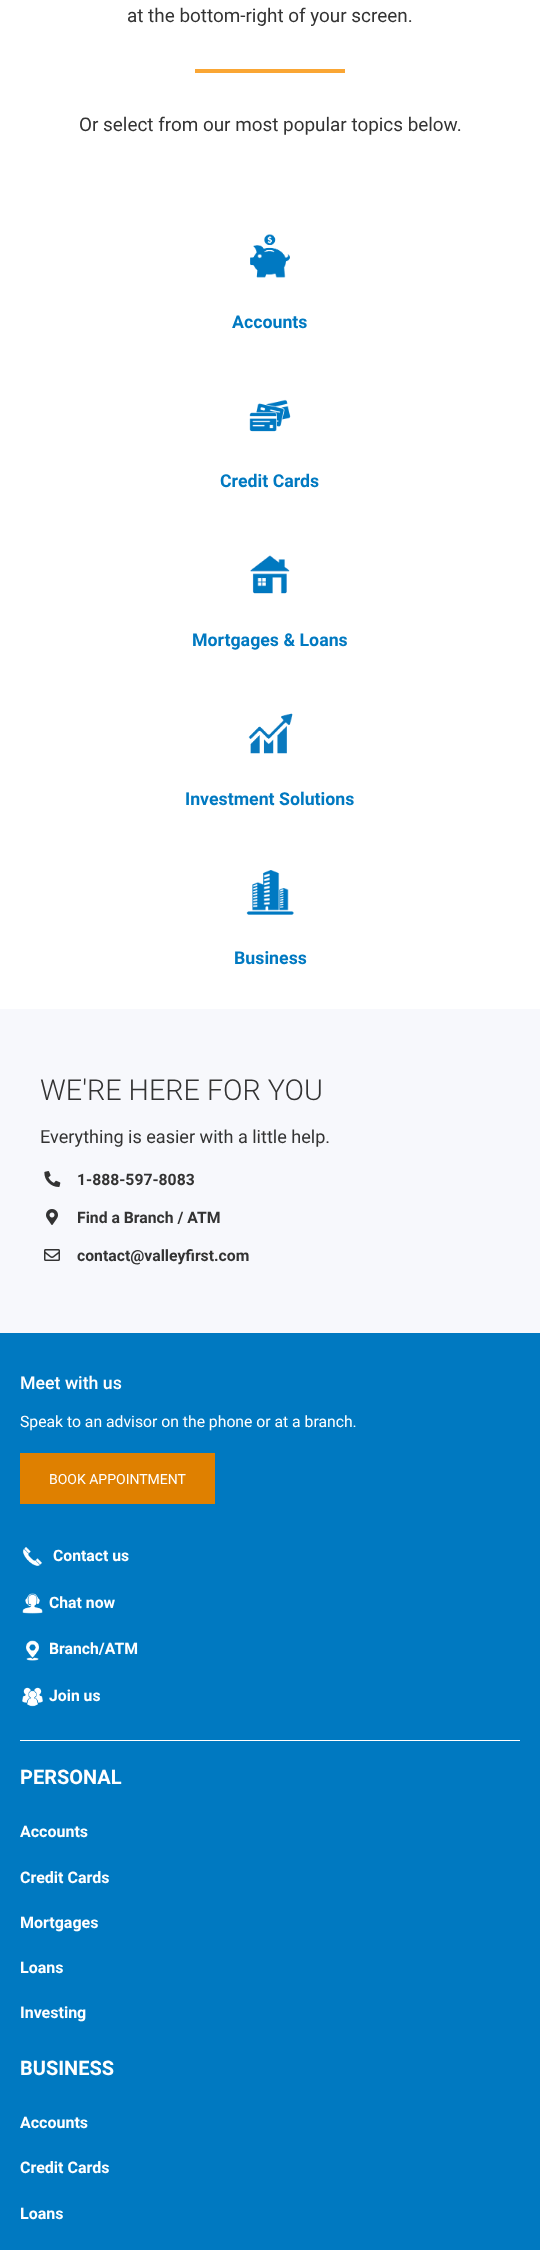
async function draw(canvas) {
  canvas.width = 540;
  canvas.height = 2250;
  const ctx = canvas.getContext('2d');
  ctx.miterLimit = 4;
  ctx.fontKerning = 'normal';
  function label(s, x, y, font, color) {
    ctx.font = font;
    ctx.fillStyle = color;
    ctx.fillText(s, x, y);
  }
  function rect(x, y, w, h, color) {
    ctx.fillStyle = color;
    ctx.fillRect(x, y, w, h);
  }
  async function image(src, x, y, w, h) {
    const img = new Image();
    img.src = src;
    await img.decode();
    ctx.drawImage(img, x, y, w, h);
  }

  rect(0, 0, 540, 2250, '#fff');
  label('at the bottom-right of your screen.', 127, 22, '18.9px Roboto', '#333');
  rect(195, 69, 150, 4, '#faa634');
  label('Or select from our most popular topics below.', 79, 131, '18.9px Roboto', '#333');
  await image('assets/img1.png', 250, 234, 40, 44);
  label('Accounts', 232, 328, 'bold 17.75px Roboto', '#0079c1');
  await image('assets/img2.png', 249, 399, 42, 33);
  label('Credit Cards', 220, 487, 'bold 17.75px Roboto', '#0079c1');
  await image('assets/img3.png', 250, 555, 40, 39);
  label('Mortgages & Loans', 192, 646, 'bold 17.75px Roboto', '#0079c1');
  await image('assets/img4.png', 248, 713, 45, 41);
  label('Investment Solutions', 185, 805, 'bold 17.75px Roboto', '#0079c1');
  await image('assets/img5.png', 246, 870, 48, 45);
  label('Business', 234, 964, 'bold 17.75px Roboto', '#0079c1');
  rect(0, 1009, 540, 324, '#f7f8fc');
  label('WE\'RE HERE FOR YOU', 40, 1100, '300 28.75px Roboto', '#333');
  label('Everything is easier with a little help.', 40, 1143, '18.1px Roboto', '#333');
  await image('assets/img6.png', 44, 1171, 17, 16);
  label('1-888-597-8083', 77, 1185, 'bold 15.75px Roboto', '#333');
  await image('assets/img7.png', 46, 1209, 12, 16);
  label('Find a Branch / ATM', 77, 1223, 'bold 15.75px Roboto', '#333');
  await image('assets/img8.png', 44, 1249, 16, 12);
  label('contact@valleyfirst.com', 77, 1261, 'bold 15.75px Roboto', '#333');
  rect(0, 1333, 540, 917, '#0079c1');
  label('Meet with us', 20, 1389, '500 17.75px Roboto', '#fff');
  label('Speak to an advisor on the phone or at a branch.', 20, 1427, '15.75px Roboto', '#fff');
  rect(20, 1453, 195, 51, '#df8000');
  label('BOOK APPOINTMENT', 49, 1484, '14px Roboto', '#fff');
  await image('assets/img9.png', 22, 1547, 20, 19);
  label('Contact us', 53, 1561, 'bold 15.75px Roboto', '#fff');
  await image('assets/img10.png', 22, 1593, 21, 21);
  label('Chat now', 49, 1608, 'bold 15.75px Roboto', '#fff');
  await image('assets/img11.png', 26, 1640, 14, 21);
  label('Branch/ATM', 49, 1654, 'bold 15.75px Roboto', '#fff');
  await image('assets/img12.png', 22, 1687, 21, 20);
  label('Join us', 49, 1701, 'bold 15.75px Roboto', '#fff');
  rect(20, 1740, 500, 1, '#fff');
  label('PERSONAL', 20, 1784, 'bold 20px Roboto', '#fff');
  label('Accounts', 20, 1837, 'bold 16px Roboto', '#fff');
  label('Credit Cards', 20, 1883, 'bold 16px Roboto', '#fff');
  label('Mortgages', 20, 1928, 'bold 16px Roboto', '#fff');
  label('Loans', 20, 1973, 'bold 16px Roboto', '#fff');
  label('Investing', 20, 2018, 'bold 16px Roboto', '#fff');
  label('BUSINESS', 20, 2075, 'bold 20px Roboto', '#fff');
  label('Accounts', 20, 2128, 'bold 16px Roboto', '#fff');
  label('Credit Cards', 20, 2173, 'bold 16px Roboto', '#fff');
  label('Loans', 20, 2219, 'bold 16px Roboto', '#fff');
}

draw(document.querySelector('canvas'));
